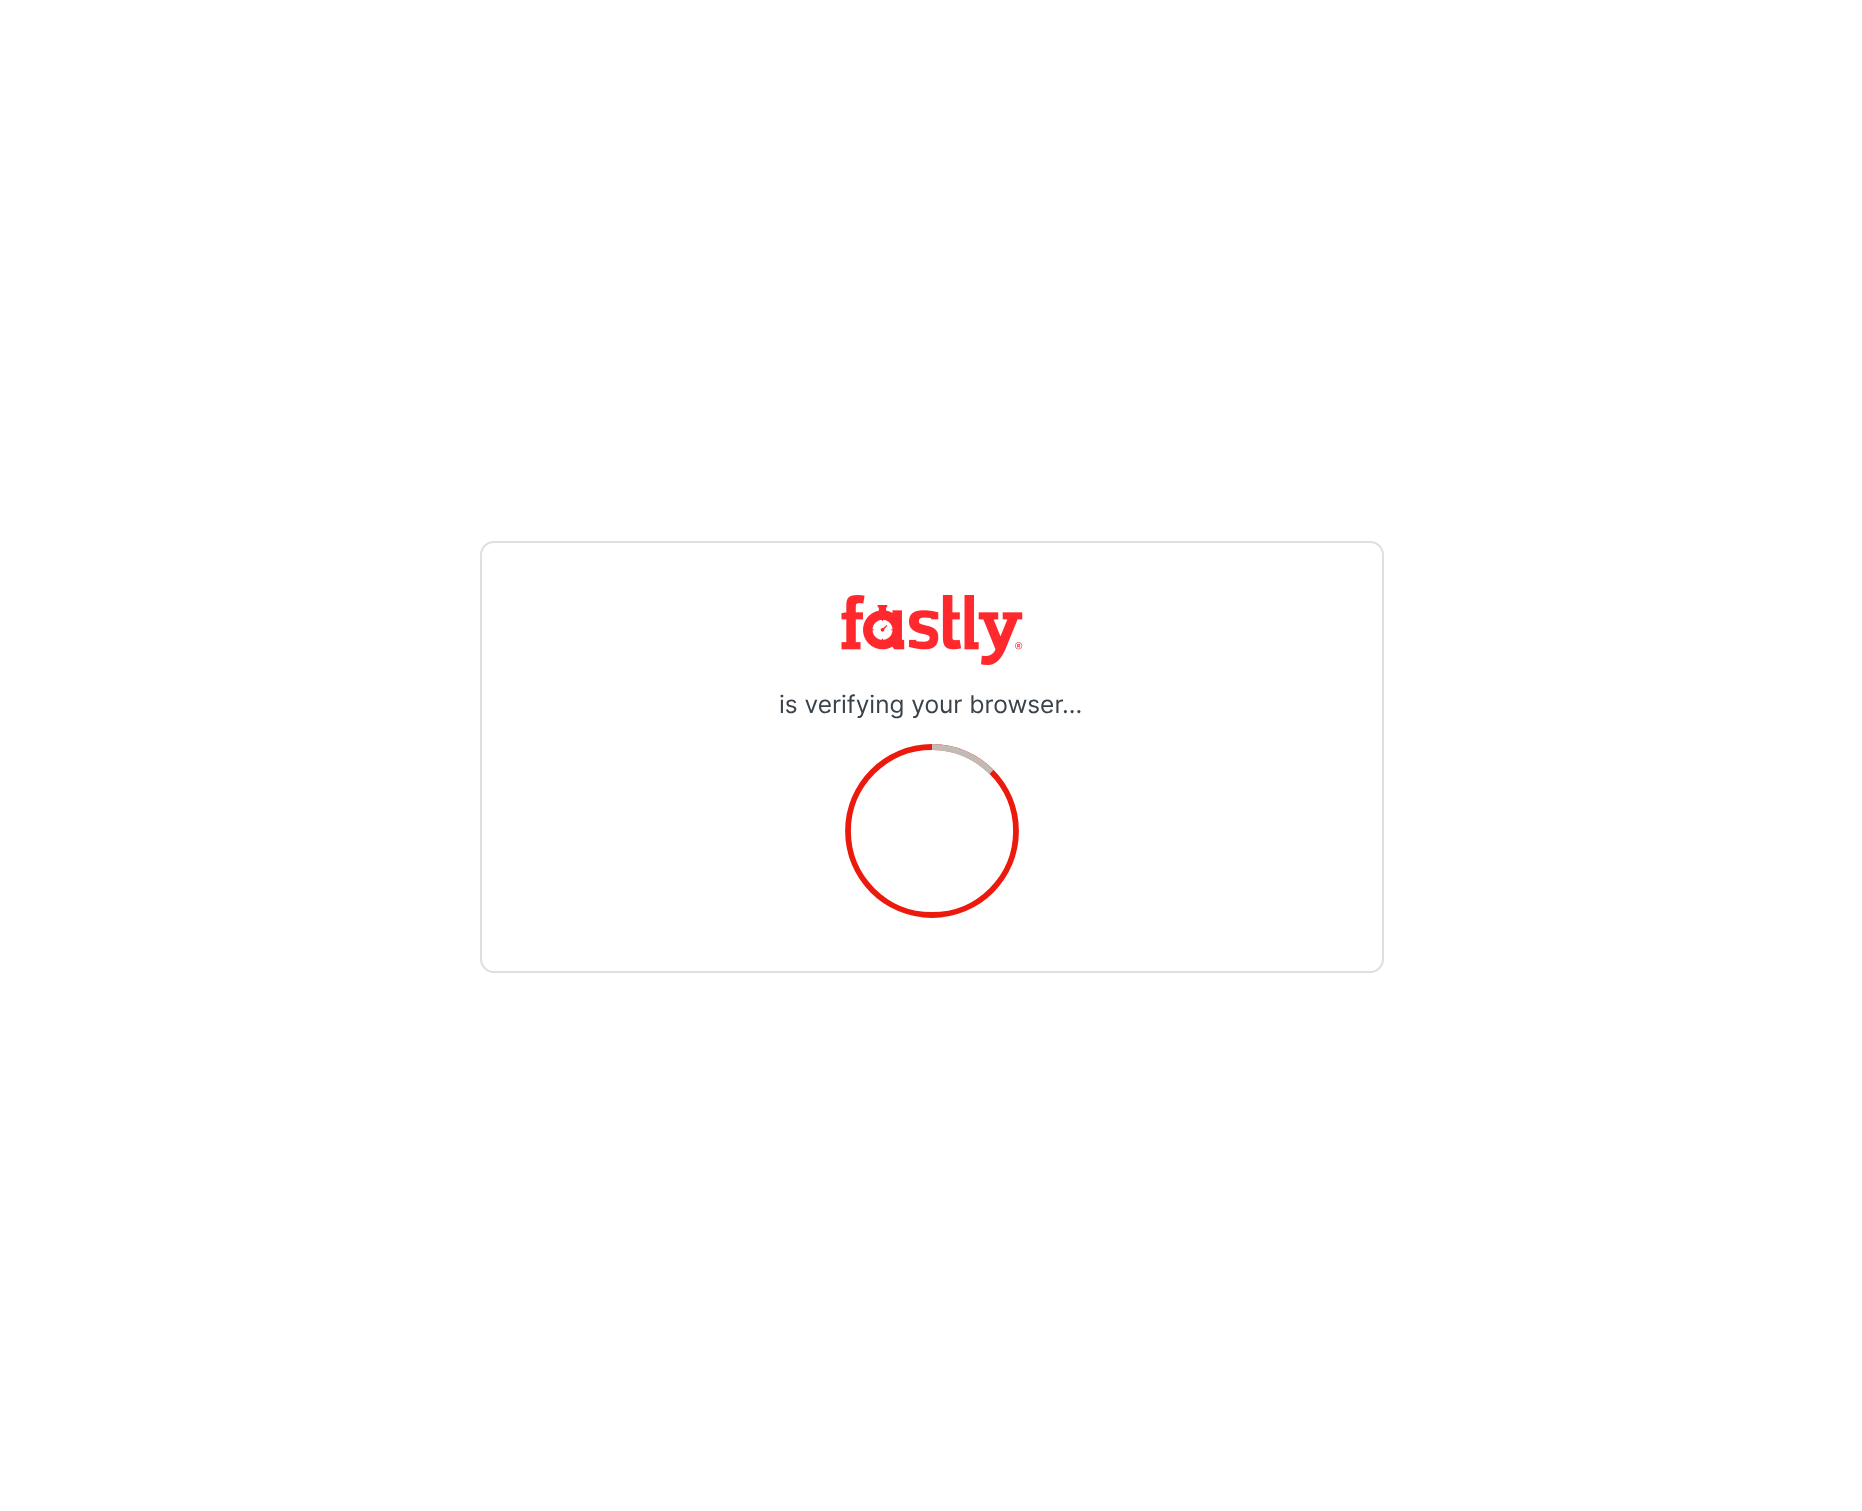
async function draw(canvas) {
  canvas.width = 1862;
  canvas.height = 1511;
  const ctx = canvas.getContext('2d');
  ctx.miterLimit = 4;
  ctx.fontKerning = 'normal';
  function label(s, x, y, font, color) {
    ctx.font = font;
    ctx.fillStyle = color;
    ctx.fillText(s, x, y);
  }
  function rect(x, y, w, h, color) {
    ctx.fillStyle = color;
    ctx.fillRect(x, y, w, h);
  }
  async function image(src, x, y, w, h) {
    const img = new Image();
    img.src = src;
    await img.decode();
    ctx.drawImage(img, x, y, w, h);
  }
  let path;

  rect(0, 0, 1862, 1511, '#fff');
  ctx.beginPath();
  ctx.roundRect(481, 542, 902, 430, 13);
  ctx.strokeStyle = '#dce0e4';
  ctx.lineWidth = 2;
  ctx.stroke();
  await image('assets/img1.png', 841, 595, 182, 70);
  label('is verifying your browser...', 779, 713, '24.5px Inter', '#3a424a');
  path = new Path2D('M848 831C848 785 885.5 747 932 747C978.5 747 1016 785 1016 831C1016 877.5 978.5 915 932 915C885.5 915 848 877.5 848 831Z');
  ctx.strokeStyle = '#eb1a0c';
  ctx.lineWidth = 5.8;
  ctx.stroke(path);
  path = new Path2D('M991.5 772C975.5 756 954 747 932 747');
  ctx.strokeStyle = '#c2bab5';
  ctx.stroke(path);
}

draw(document.querySelector('canvas'));
